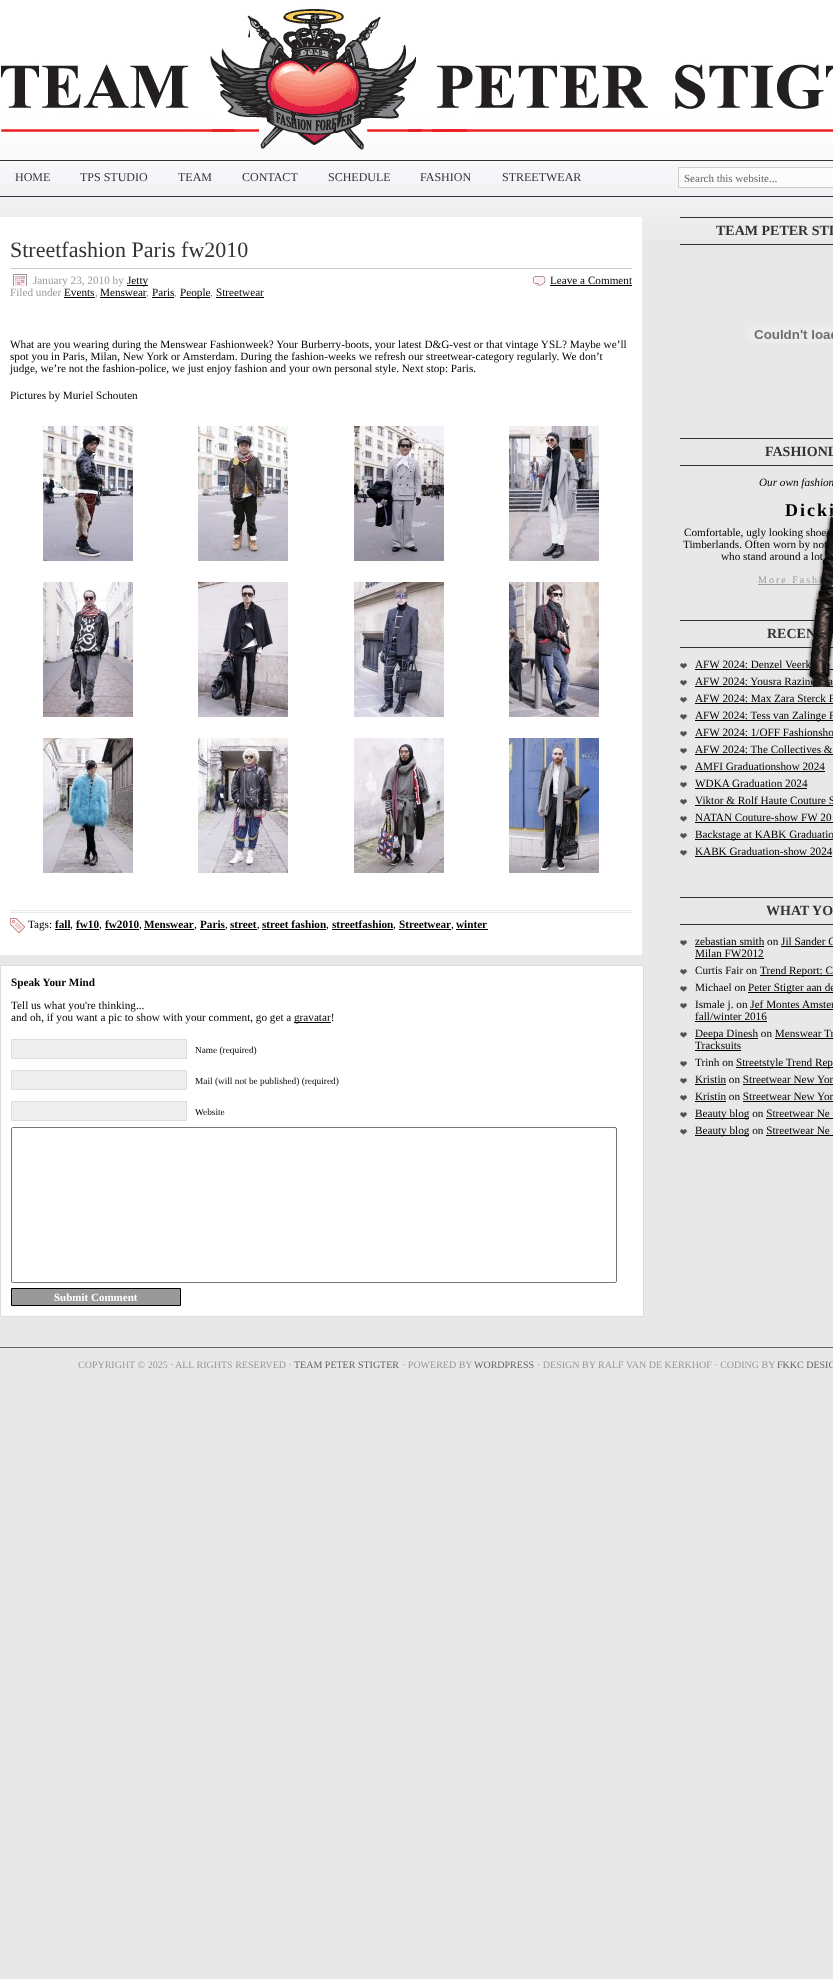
async function draw(canvas) {
  canvas.width = 833;
  canvas.height = 1979;
  const ctx = canvas.getContext('2d');
  ctx.miterLimit = 4;
  ctx.fontKerning = 'normal';
  function label(s, x, y, font, color) {
    ctx.font = font;
    ctx.fillStyle = color;
    ctx.fillText(s, x, y);
  }
  function rect(x, y, w, h, color) {
    ctx.fillStyle = color;
    ctx.fillRect(x, y, w, h);
  }
  async function image(src, x, y, w, h) {
    const img = new Image();
    img.src = src;
    await img.decode();
    ctx.drawImage(img, x, y, w, h);
  }

  rect(0, 0, 833, 1979, '#e8e8e8');
  await image('assets/img1.png', 0, 0, 833, 239);
  await image('assets/img2.png', 1, 2, 832, 148);
  rect(0, 160, 833, 1, '#333');
  rect(0, 196, 833, 1, '#333');
  label('HOME', 15, 181, '12px Liberation Serif', '#333');
  label('TPS STUDIO', 80, 181, '12px Liberation Serif', '#333');
  label('TEAM', 178, 181, '12px Liberation Serif', '#333');
  label('CONTACT', 242, 181, '12px Liberation Serif', '#333');
  label('SCHEDULE', 328, 181, '12px Liberation Serif', '#333');
  label('FASHION', 420, 181, '12px Liberation Serif', '#333');
  label('STREETWEAR', 502, 181, '12px Liberation Serif', '#333');
  ctx.fillStyle = '#fcfcfc';
  ctx.beginPath();
  ctx.rect(678.5, 167.5, 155, 20);
  ctx.fill();
  ctx.strokeStyle = '#ccc';
  ctx.stroke();
  label('Search this website...', 684, 182, '11px Liberation Serif', '#666');
  rect(0, 217, 642, 738, '#fff');
  label('Streetfashion Paris fw2010', 10, 257, '22px Liberation Serif', '#333');
  rect(10, 268, 622, 1, '#ccc');
  await image('assets/img3.png', 13, 274, 14, 12);
  label('January 23, 2010 by', 33, 284, '11.2px Liberation Serif', '#999');
  rect(127, 285, 21, 1, '#000');
  label('Jetty', 127, 284, '11.2px Liberation Serif', '#000');
  label('Filed under', 10, 296, '11.2px Liberation Serif', '#999');
  label('Events', 64, 296, '11.2px Liberation Serif', '#000');
  rect(64, 297, 31, 1, '#000');
  label(',', 95, 296, '11.2px Liberation Serif', '#999');
  label('Menswear', 100, 296, '11.2px Liberation Serif', '#000');
  rect(100, 297, 46, 1, '#000');
  label(',', 146, 296, '11.2px Liberation Serif', '#999');
  label('Paris', 152, 296, '11.2px Liberation Serif', '#000');
  rect(152, 297, 22, 1, '#000');
  label(',', 174, 296, '11.2px Liberation Serif', '#999');
  rect(180, 297, 30, 1, '#000');
  label('People', 180, 296, '11.2px Liberation Serif', '#000');
  label(',', 210, 296, '11.2px Liberation Serif', '#999');
  label('Streetwear', 216, 296, '11.2px Liberation Serif', '#000');
  rect(216, 297, 48, 1, '#000');
  await image('assets/img4.png', 532, 274, 14, 12);
  label('Leave a Comment', 550, 284, '11.2px Liberation Serif', '#000');
  rect(550, 285, 82, 1, '#000');
  label('What are you wearing during the Menswear Fashionweek? Your Burberry-boots, your latest D&G-vest or that vintage YSL? Maybe we’ll', 10, 348, '11.2px Liberation Serif', '#000');
  label('spot you in Paris, Milan, New York or Amsterdam. During the fashion-weeks we refresh our streetwear-category regularly. We don’t', 10, 360, '11.2px Liberation Serif', '#000');
  label('judge, we’re not the fashion-police, we just enjoy fashion and your own personal style. Next stop: Paris.', 10, 372, '11.2px Liberation Serif', '#000');
  label('Pictures by Muriel Schouten', 10, 399, '11.2px Liberation Serif', '#000');
  await image('assets/img5.png', 43, 426, 90, 135);
  await image('assets/img6.png', 198, 426, 90, 135);
  await image('assets/img7.png', 354, 426, 90, 135);
  await image('assets/img8.png', 509, 426, 90, 135);
  await image('assets/img9.png', 43, 582, 90, 135);
  await image('assets/img10.png', 198, 582, 90, 135);
  await image('assets/img11.png', 354, 582, 90, 135);
  await image('assets/img12.png', 509, 582, 90, 135);
  await image('assets/img13.png', 43, 738, 90, 135);
  await image('assets/img14.png', 198, 738, 90, 135);
  await image('assets/img15.png', 354, 738, 90, 135);
  await image('assets/img16.png', 509, 738, 90, 135);
  rect(10, 910, 622, 1, '#eaeaea');
  rect(10, 912, 622, 1, '#eaeaea');
  await image('assets/img17.png', 10, 918, 16, 16);
  label('Tags:', 28, 928, '11.2px Liberation Serif', '#000');
  label('fall', 55, 928, 'bold 11.2px Liberation Serif', '#000');
  label(',', 70, 928, '11.2px Liberation Serif', '#000');
  rect(55, 929, 15, 1, '#000');
  label('fw10', 76, 928, 'bold 11.2px Liberation Serif', '#000');
  label(',', 99, 928, '11.2px Liberation Serif', '#000');
  rect(76, 929, 23, 1, '#000');
  label('fw2010', 105, 928, 'bold 11.2px Liberation Serif', '#000');
  label(',', 139, 928, '11.2px Liberation Serif', '#000');
  rect(105, 929, 34, 1, '#000');
  label('Menswear', 144, 928, 'bold 11.2px Liberation Serif', '#000');
  label(',', 194, 928, '11.2px Liberation Serif', '#000');
  rect(144, 929, 50, 1, '#000');
  label('Paris', 200, 928, 'bold 11.2px Liberation Serif', '#000');
  rect(200, 929, 25, 1, '#000');
  label(',', 225, 928, '11.2px Liberation Serif', '#000');
  label('street', 230, 928, 'bold 11.2px Liberation Serif', '#000');
  label(',', 257, 928, '11.2px Liberation Serif', '#000');
  rect(230, 929, 27, 1, '#000');
  label('street fashion', 262, 928, 'bold 11.2px Liberation Serif', '#000');
  label(',', 326, 928, '11.2px Liberation Serif', '#000');
  rect(262, 929, 64, 1, '#000');
  label('streetfashion', 332, 928, 'bold 11.2px Liberation Serif', '#000');
  label(',', 393, 928, '11.2px Liberation Serif', '#000');
  rect(332, 929, 61, 1, '#000');
  label('Streetwear', 399, 928, 'bold 11.2px Liberation Serif', '#000');
  label(',', 451, 928, '11.2px Liberation Serif', '#000');
  rect(399, 929, 52, 1, '#000');
  rect(456, 929, 32, 1, '#000');
  label('winter', 456, 928, 'bold 11.2px Liberation Serif', '#000');
  ctx.fillStyle = '#fff';
  ctx.beginPath();
  ctx.rect(0.5, 965.5, 643, 351);
  ctx.fill();
  ctx.strokeStyle = '#ddd';
  ctx.stroke();
  label('Speak Your Mind', 11, 986, 'bold 11.2px Liberation Serif', '#000');
  label('Tell us what you\'re thinking...', 11, 1009, '11.2px Liberation Serif', '#000');
  label('and oh, if you want a pic to show with your comment, go get a', 11, 1021, '11.2px Liberation Serif', '#000');
  rect(294, 1022, 37, 1, '#000');
  label('gravatar!', 294, 1021, '11.2px Liberation Serif', '#000');
  ctx.fillStyle = '#eee';
  ctx.beginPath();
  ctx.rect(11.5, 1039.5, 175, 19);
  ctx.fill();
  ctx.stroke();
  label('Name (required)', 195, 1053, '9.3px Liberation Serif', '#000');
  ctx.fillStyle = '#eee';
  ctx.beginPath();
  ctx.rect(11.5, 1070.5, 175, 19);
  ctx.fill();
  ctx.stroke();
  label('Mail (will not be published) (required)', 195, 1084, '9.3px Liberation Serif', '#000');
  ctx.fillStyle = '#eee';
  ctx.beginPath();
  ctx.rect(11.5, 1101.5, 175, 19);
  ctx.fill();
  ctx.stroke();
  label('Website', 195, 1115, '9.3px Liberation Serif', '#000');
  ctx.beginPath();
  ctx.roundRect(11.5, 1127.5, 605, 155, 1.5);
  ctx.strokeStyle = '#767676';
  ctx.stroke();
  ctx.fillStyle = '#999';
  ctx.beginPath();
  ctx.rect(11.5, 1288.5, 169, 17);
  ctx.fill();
  ctx.strokeStyle = '#000';
  ctx.stroke();
  label('Submit Comment', 54, 1301, 'bold 11px Liberation Serif', '#fff');
  rect(680, 217, 153, 1, '#333');
  rect(680, 244, 153, 1, '#333');
  label('TEAM PETER STI', 716, 235, 'bold 14px Liberation Serif', '#333');
  await image('assets/img18.png', 748, 325, 85, 18);
  rect(680, 438, 153, 1, '#333');
  rect(680, 465, 153, 1, '#333');
  label('FASHIONL', 765, 456, 'bold 14px Liberation Serif', '#333');
  label('Our own fashion', 759, 486, 'italic 11.2px Liberation Serif', '#000');
  ctx.letterSpacing = '2px';
  label('Dicki', 785, 516, 'bold 18px Liberation Serif', '#000');
  ctx.letterSpacing = '0px';
  label('Comfortable, ugly looking shoe', 684, 536, '11.2px Liberation Serif', '#000');
  label('Timberlands. Often worn by not', 683, 548, '11.2px Liberation Serif', '#000');
  label('who stand around a lot', 721, 560, '11.2px Liberation Serif', '#000');
  ctx.letterSpacing = '2px';
  label('More Fashi', 758, 583, '10px Liberation Serif', '#999');
  rect(758, 584, 64, 1, '#999');
  rect(680, 620, 135, 1, '#333');
  rect(680, 647, 153, 1, '#333');
  ctx.letterSpacing = '0px';
  label('RECEN', 767, 638, 'bold 14px Liberation Serif', '#333');
  await image('assets/img19.png', 680, 663, 7, 6);
  label('AFW 2024: Denzel Veerk', 695, 668, '11.2px Liberation Serif', '#000');
  rect(695, 669, 138, 1, '#000');
  await image('assets/img19.png', 680, 680, 7, 6);
  label('AFW 2024: Yousra Razine Ma', 695, 685, '11.2px Liberation Serif', '#000');
  rect(695, 686, 138, 1, '#000');
  await image('assets/img19.png', 680, 697, 7, 6);
  label('AFW 2024: Max Zara Sterck F', 695, 702, '11.2px Liberation Serif', '#000');
  rect(695, 703, 138, 1, '#000');
  await image('assets/img19.png', 680, 714, 7, 6);
  rect(695, 720, 138, 1, '#000');
  label('AFW 2024: Tess van Zalinge F', 695, 719, '11.2px Liberation Serif', '#000');
  await image('assets/img19.png', 680, 731, 7, 6);
  label('AFW 2024: 1/OFF Fashionsho', 695, 736, '11.2px Liberation Serif', '#000');
  rect(695, 737, 138, 1, '#000');
  await image('assets/img19.png', 680, 748, 7, 6);
  label('AFW 2024: The Collectives &', 695, 753, '11.2px Liberation Serif', '#000');
  rect(695, 754, 138, 1, '#000');
  await image('assets/img19.png', 680, 765, 7, 6);
  label('AMFI Graduationshow 2024', 695, 770, '11.2px Liberation Serif', '#000');
  rect(695, 771, 130, 1, '#000');
  await image('assets/img19.png', 680, 782, 7, 6);
  label('WDKA Graduation 2024', 695, 787, '11.2px Liberation Serif', '#000');
  rect(695, 788, 112, 1, '#000');
  await image('assets/img19.png', 680, 799, 7, 6);
  label('Viktor & Rolf Haute Couture S', 695, 804, '11.2px Liberation Serif', '#000');
  rect(695, 805, 138, 1, '#000');
  await image('assets/img19.png', 680, 816, 7, 6);
  label('NATAN Couture-show FW 20', 695, 821, '11.2px Liberation Serif', '#000');
  rect(695, 822, 138, 1, '#000');
  await image('assets/img19.png', 680, 833, 7, 6);
  rect(695, 839, 138, 1, '#000');
  label('Backstage at KABK Graduatio', 695, 838, '11.2px Liberation Serif', '#000');
  await image('assets/img19.png', 680, 850, 7, 6);
  label('KABK Graduation-show 2024', 695, 855, '11.2px Liberation Serif', '#000');
  rect(695, 856, 137, 1, '#000');
  rect(680, 897, 153, 1, '#333');
  rect(680, 924, 153, 1, '#333');
  label('WHAT YO', 766, 915, 'bold 14px Liberation Serif', '#333');
  await image('assets/img19.png', 680, 940, 7, 6);
  label('zebastian smith on Jil Sander C', 695, 945, '11.2px Liberation Serif', '#000');
  rect(695, 946, 69, 1, '#000');
  label('Milan FW2012', 695, 957, '11.2px Liberation Serif', '#000');
  rect(781, 946, 52, 1, '#000');
  rect(695, 958, 69, 1, '#000');
  await image('assets/img19.png', 680, 969, 7, 6);
  label('Curtis Fair on', 695, 974, '11.2px Liberation Serif', '#000');
  rect(760, 975, 73, 1, '#000');
  label('Trend Report: C', 760, 974, '11.2px Liberation Serif', '#000');
  await image('assets/img19.png', 680, 986, 7, 6);
  label('Michael on', 695, 991, '11.2px Liberation Serif', '#000');
  rect(748, 992, 85, 1, '#000');
  label('Peter Stigter aan de', 748, 991, '11.2px Liberation Serif', '#000');
  await image('assets/img19.png', 680, 1003, 7, 6);
  label('Ismale j. on Jef Montes Amster', 695, 1008, '11.2px Liberation Serif', '#000');
  label('fall/winter 2016', 695, 1020, '11.2px Liberation Serif', '#000');
  rect(750, 1009, 83, 1, '#000');
  rect(695, 1021, 72, 1, '#000');
  await image('assets/img19.png', 680, 1032, 7, 6);
  rect(695, 1038, 63, 1, '#000');
  label('Deepa Dinesh on Menswear Tr', 695, 1037, '11.2px Liberation Serif', '#000');
  label('Tracksuits', 695, 1049, '11.2px Liberation Serif', '#000');
  rect(775, 1038, 58, 1, '#000');
  rect(695, 1050, 46, 1, '#000');
  await image('assets/img19.png', 680, 1061, 7, 6);
  label('Trinh on', 695, 1066, '11.2px Liberation Serif', '#000');
  rect(736, 1067, 97, 1, '#000');
  label('Streetstyle Trend Rep', 736, 1066, '11.2px Liberation Serif', '#000');
  await image('assets/img19.png', 680, 1078, 7, 6);
  label('Kristin on Streetwear New Yor', 695, 1083, '11.2px Liberation Serif', '#000');
  rect(695, 1084, 31, 1, '#000');
  rect(743, 1084, 90, 1, '#000');
  await image('assets/img19.png', 680, 1095, 7, 6);
  label('Kristin on Streetwear New Yor', 695, 1100, '11.2px Liberation Serif', '#000');
  rect(695, 1101, 31, 1, '#000');
  rect(743, 1101, 90, 1, '#000');
  await image('assets/img19.png', 680, 1112, 7, 6);
  rect(695, 1118, 54, 1, '#000');
  label('Beauty blog on Streetwear Ne', 695, 1117, '11.2px Liberation Serif', '#000');
  rect(766, 1118, 67, 1, '#000');
  await image('assets/img19.png', 680, 1129, 7, 6);
  rect(695, 1135, 54, 1, '#000');
  label('Beauty blog on Streetwear Ne', 695, 1134, '11.2px Liberation Serif', '#000');
  rect(766, 1135, 67, 1, '#000');
  await image('assets/img20.png', 805, 512, 28, 175);
  rect(0, 1347, 833, 1, '#666');
  label('COPYRIGHT © 2025 ·', 78, 1368, '10px Liberation Serif', '#999');
  label('ALL RIGHTS RESERVED ·', 175, 1368, '10px Liberation Serif', '#999');
  label('TEAM PETER STIGTER', 294, 1368, '10px Liberation Serif', '#666');
  label('· POWERED BY', 402, 1368, '10px Liberation Serif', '#999');
  label('WORDPRESS', 474, 1368, '10px Liberation Serif', '#666');
  label('· DESIGN BY RALF VAN DE KERKHOF · CODING BY', 537, 1368, '10px Liberation Serif', '#999');
  label('FKKC DESIG', 777, 1368, '10px Liberation Serif', '#666');
}

draw(document.querySelector('canvas'));
